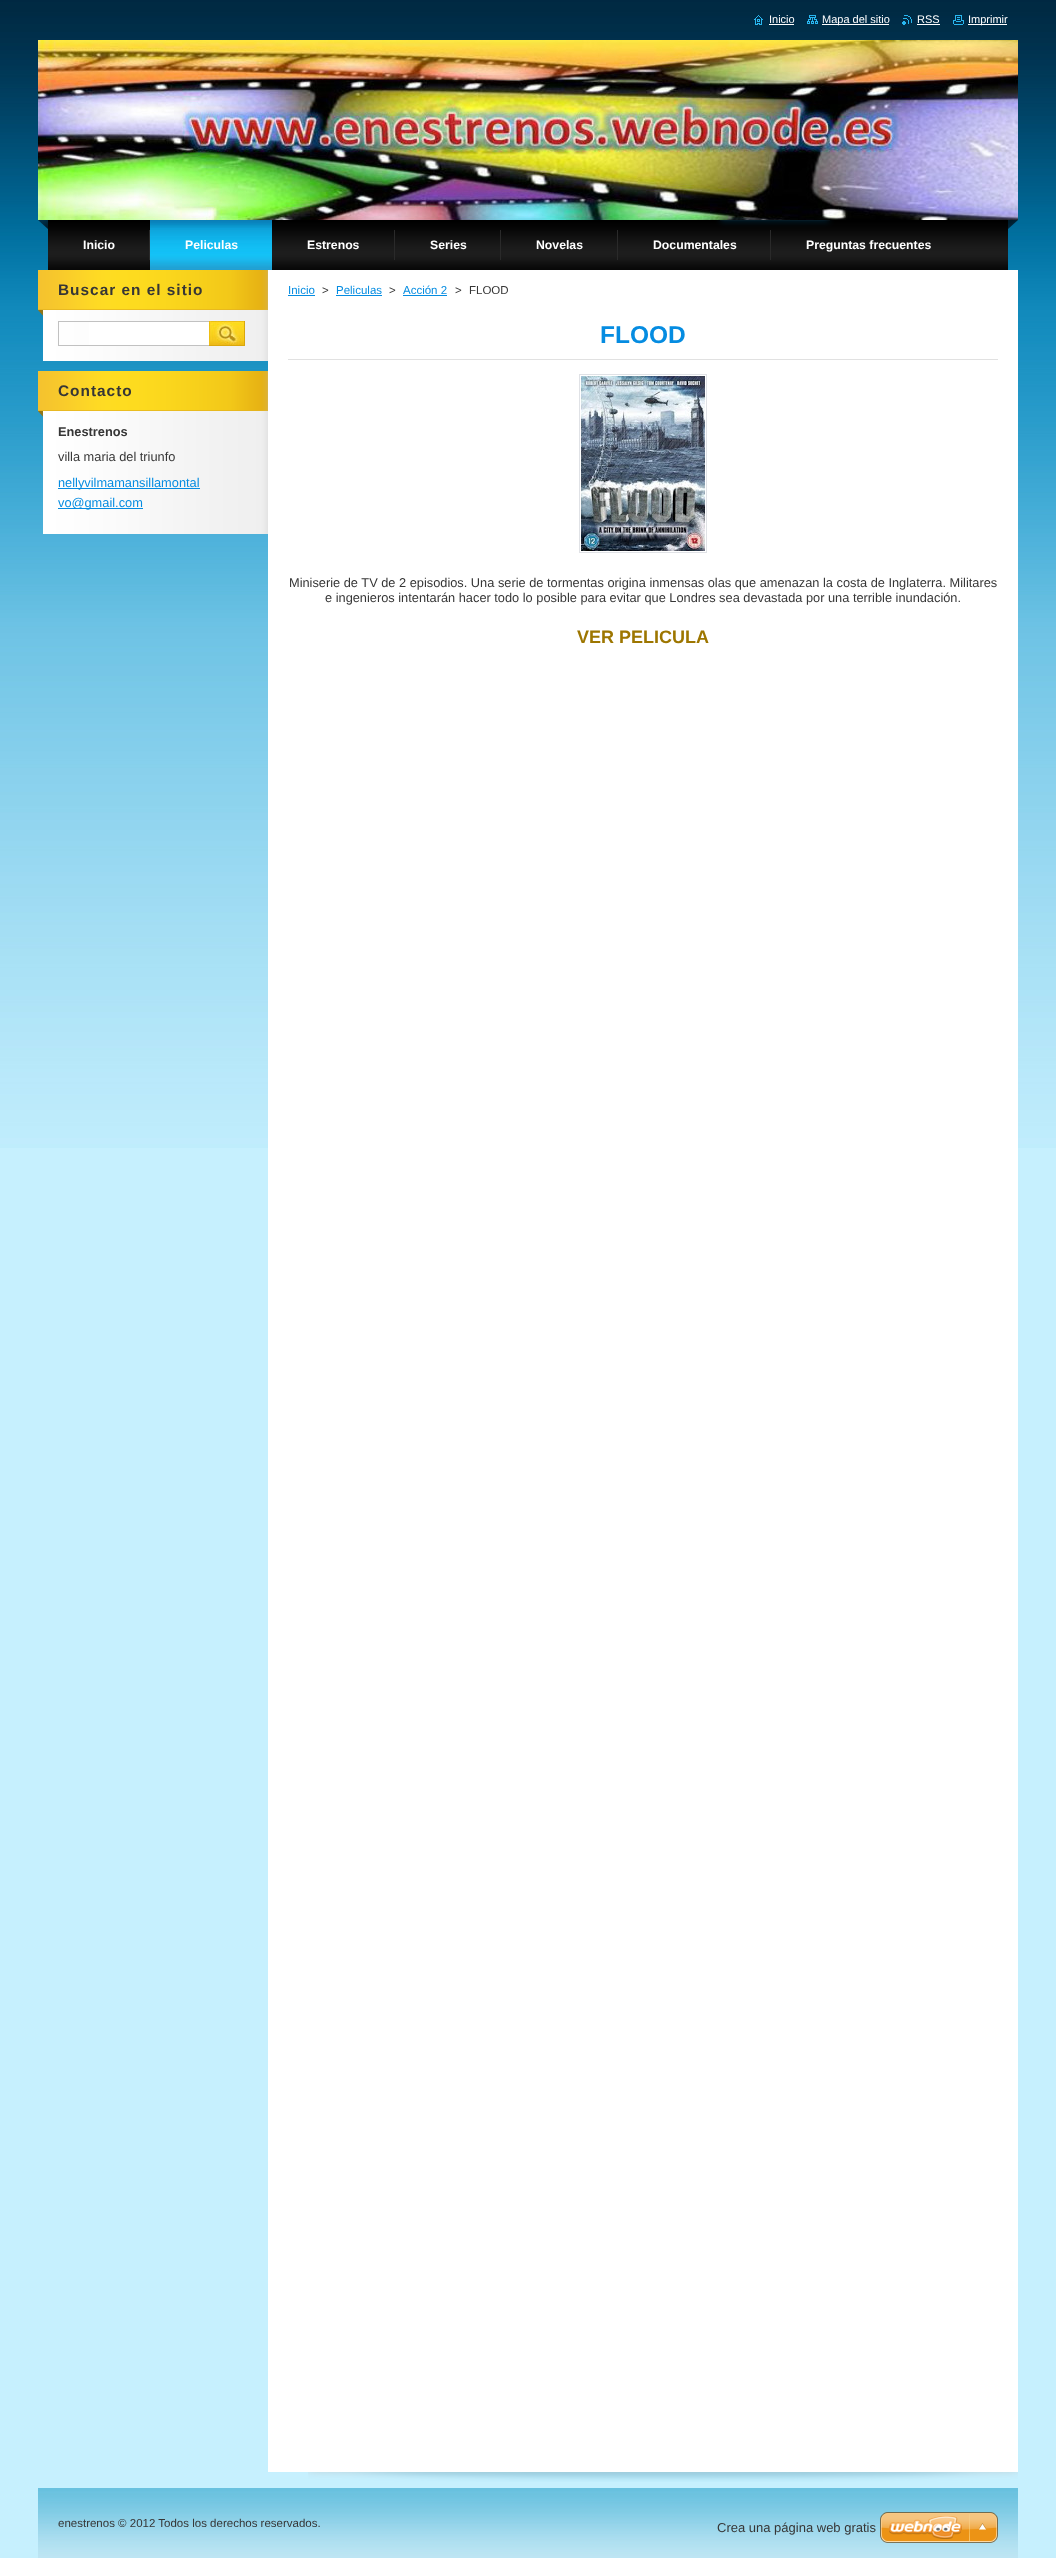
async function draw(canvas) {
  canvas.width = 1056;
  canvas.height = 2558;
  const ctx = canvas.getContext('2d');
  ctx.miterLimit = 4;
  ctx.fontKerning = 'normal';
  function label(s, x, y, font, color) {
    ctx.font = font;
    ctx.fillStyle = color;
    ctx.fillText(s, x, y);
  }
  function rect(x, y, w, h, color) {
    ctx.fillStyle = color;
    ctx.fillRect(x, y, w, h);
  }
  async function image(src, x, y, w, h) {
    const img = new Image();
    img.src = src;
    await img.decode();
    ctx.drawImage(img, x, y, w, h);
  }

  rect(0, 0, 1056, 2558, '#c6f0fe');
  await image('assets/img1.png', 0, 0, 1056, 1148);
  await image('assets/img2.png', 754, 15, 9, 10);
  label('Inicio', 769, 23, '11px Liberation Sans', '#fff');
  rect(769, 24, 25, 1, '#fff');
  await image('assets/img3.png', 807, 15, 11, 9);
  rect(822, 24, 67, 1, '#fff');
  label('Mapa del sitio', 822, 23, '11px Liberation Sans', '#fff');
  await image('assets/img4.png', 902, 15, 10, 10);
  label('RSS', 917, 23, '11px Liberation Sans', '#fff');
  rect(917, 24, 23, 1, '#fff');
  await image('assets/img5.png', 953, 15, 11, 10);
  rect(968, 24, 39, 1, '#fff');
  label('Imprimir', 968, 23, '11px Liberation Sans', '#fff');
  await image('assets/img6.png', 38, 40, 980, 180);
  await image('assets/img7.png', 38, 220, 980, 50);
  rect(149, 230, 1, 30, '#2a2a2a');
  label('Inicio', 83, 249, 'bold 12.25px Liberation Sans', '#fff');
  await image('assets/img8.png', 150, 220, 122, 50);
  label('Peliculas', 185, 249, 'bold 12.25px Liberation Sans', '#fff');
  rect(394, 230, 1, 30, '#2a2a2a');
  label('Estrenos', 307, 249, 'bold 12.25px Liberation Sans', '#fff');
  rect(500, 230, 1, 30, '#2a2a2a');
  label('Series', 430, 249, 'bold 12.25px Liberation Sans', '#fff');
  rect(617, 230, 1, 30, '#2a2a2a');
  label('Novelas', 536, 249, 'bold 12.25px Liberation Sans', '#fff');
  rect(770, 230, 1, 30, '#2a2a2a');
  label('Documentales', 653, 249, 'bold 12.25px Liberation Sans', '#fff');
  label('Preguntas frecuentes', 806, 249, 'bold 12.25px Liberation Sans', '#fff');
  await image('assets/img9.png', 43, 316, 225, 45);
  await image('assets/img10.png', 38, 270, 230, 46);
  ctx.letterSpacing = '1px';
  label('Buscar en el sitio', 58, 295, 'bold 15.4px Liberation Sans', '#363636');
  rect(89, 322, 120, 23, '#fff');
  ctx.strokeStyle = '#c1c1c1';
  ctx.strokeRect(58.5, 321.5, 151, 24);
  await image('assets/img11.png', 209, 321, 36, 25);
  await image('assets/img12.png', 43, 417, 225, 117);
  await image('assets/img13.png', 38, 371, 230, 46);
  label('Contacto', 58, 396, 'bold 15.4px Liberation Sans', '#363636');
  ctx.letterSpacing = '0px';
  label('Enestrenos', 58, 436, 'bold 12.8px Liberation Sans', '#363636');
  label('villa maria del triunfo', 58, 461, '12.8px Liberation Sans', '#363636');
  rect(58, 488, 142, 1, '#058ce1');
  label('nellyvilmamansillamontal', 58, 487, '12.8px Liberation Sans', '#058ce1');
  rect(58, 508, 85, 1, '#058ce1');
  label('vo@gmail.com', 58, 507, '12.8px Liberation Sans', '#058ce1');
  await image('assets/img14.png', 308, 2472, 710, 10);
  rect(268, 270, 750, 2202, '#fff');
  label('Inicio', 288, 294, '11.5px Liberation Sans', '#058ce1');
  rect(288, 295, 27, 1, '#058ce1');
  label('>', 322, 294, '11.5px Liberation Sans', '#363636');
  label('Peliculas', 336, 294, '11.5px Liberation Sans', '#058ce1');
  rect(336, 295, 46, 1, '#058ce1');
  label('>', 389, 294, '11.5px Liberation Sans', '#363636');
  label('Acción 2', 403, 294, '11.5px Liberation Sans', '#058ce1');
  rect(403, 295, 44, 1, '#058ce1');
  label('>', 455, 294, '11.5px Liberation Sans', '#363636');
  label('FLOOD', 469, 294, '11.5px Liberation Sans', '#363636');
  rect(288, 359, 710, 1, '#e1e1e1');
  label('FLOOD', 600, 343, 'bold 24.5px Liberation Sans', '#058ce1');
  ctx.strokeStyle = '#e0e2e6';
  ctx.strokeRect(579.5, 374.5, 127, 178);
  await image('assets/img15.png', 581, 376, 124, 175);
  label('Miniserie de TV de 2 episodios. Una serie de tormentas origina inmensas olas que amenazan la costa de Inglaterra. Militares', 289, 587, '12.8px Liberation Sans', '#363636');
  label('e ingenieros intentarán hacer todo lo posible para evitar que Londres sea devastada por una terrible inundación.', 325, 602, '12.8px Liberation Sans', '#363636');
  label('VER PELICULA', 577, 643, 'bold 18px Liberation Sans', '#9d7600');
  await image('assets/img16.png', 38, 2488, 980, 70);
  label('enestrenos © 2012 Todos los derechos reservados.', 58, 2527, '11.5px Liberation Sans', '#363636');
  label('Crea una página web gratis', 717, 2532, '13px Liberation Sans', '#363636');
  await image('assets/img17.png', 880, 2512, 118, 31);
}

draw(document.querySelector('canvas'));
